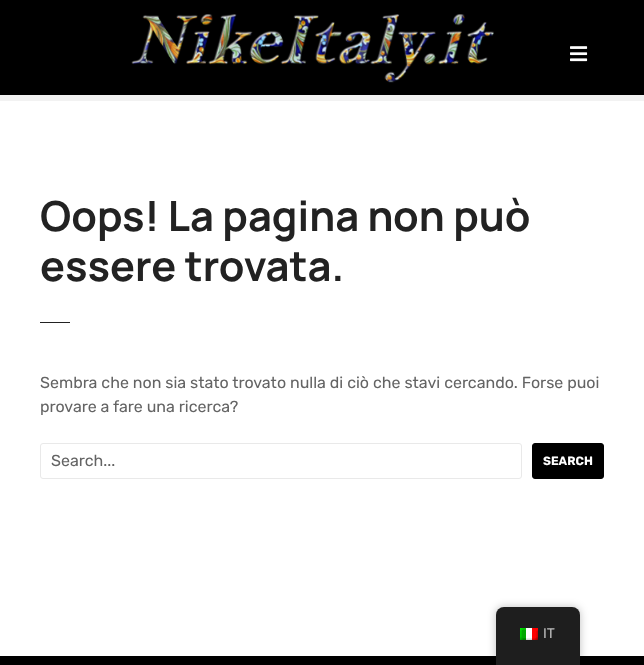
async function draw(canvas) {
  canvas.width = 644;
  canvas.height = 665;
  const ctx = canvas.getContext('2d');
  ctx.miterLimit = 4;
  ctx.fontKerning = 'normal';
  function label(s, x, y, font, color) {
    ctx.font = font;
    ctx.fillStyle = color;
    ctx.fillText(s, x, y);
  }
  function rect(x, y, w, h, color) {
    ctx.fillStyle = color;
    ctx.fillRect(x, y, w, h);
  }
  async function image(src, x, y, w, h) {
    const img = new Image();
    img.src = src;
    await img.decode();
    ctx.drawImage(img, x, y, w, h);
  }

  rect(0, 0, 644, 665, '#fff');
  rect(0, 0, 644, 95, '#000');
  await image('assets/img1.png', 131, 14, 363, 69);
  await image('assets/img2.png', 570, 46, 18, 16);
  rect(0, 95, 644, 6, '#f2f2f2');
  label('Oops! La pagina non può', 40, 231, 'bold 41.6px Manrope', '#222');
  label('essere trovata.', 40, 281, 'bold 41.6px Manrope', '#222');
  rect(40, 322, 30, 1, '#222');
  label('Sembra che non sia stato trovato nulla di ciò che stavi cercando. Forse puoi', 40, 388, '16px Rubik', '#646464');
  label('provare a fare una ricerca?', 40, 412, '16px Rubik', '#646464');
  ctx.beginPath();
  ctx.roundRect(40.5, 443.5, 481, 35, 2.5);
  ctx.strokeStyle = '#e9e9e9';
  ctx.stroke();
  label('Search...', 51, 466, '16px Rubik', '#646464');
  ctx.fillStyle = '#000';
  ctx.beginPath();
  ctx.roundRect(532.5, 443.5, 71, 35, 2.5);
  ctx.fill();
  ctx.strokeStyle = '#000';
  ctx.stroke();
  label('SEARCH', 543, 465, 'bold 12px Rubik', '#fff');
  rect(0, 656, 644, 9, '#000');
  ctx.fillStyle = '#00000040';
  ctx.filter = 'blur(4px)';
  ctx.beginPath();
  ctx.roundRect(496, 607, 84, 58, 8);
  ctx.fill();
  ctx.filter = 'none';
  ctx.fillStyle = '#1e1e1e';
  ctx.beginPath();
  ctx.roundRect(496, 607, 84, 58, [8, 8, 0, 0]);
  ctx.fill();
  await image('assets/img3.png', 520, 628, 18, 12);
  label('IT', 543, 638, '14px Rubik', '#bdbdbd');
}

draw(document.querySelector('canvas'));
